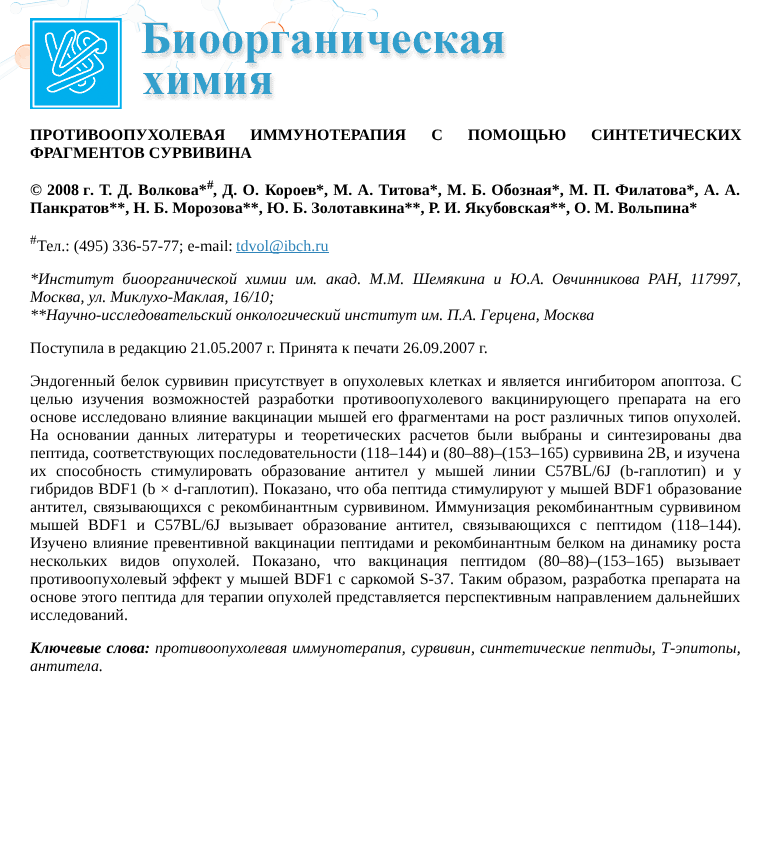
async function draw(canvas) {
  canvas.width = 771;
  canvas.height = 856;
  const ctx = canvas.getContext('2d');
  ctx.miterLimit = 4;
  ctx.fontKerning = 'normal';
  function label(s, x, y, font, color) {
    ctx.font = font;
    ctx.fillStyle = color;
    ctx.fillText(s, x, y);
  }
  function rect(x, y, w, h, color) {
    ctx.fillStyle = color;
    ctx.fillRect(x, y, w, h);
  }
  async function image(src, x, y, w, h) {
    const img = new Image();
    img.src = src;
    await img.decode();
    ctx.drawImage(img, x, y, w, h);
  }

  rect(0, 0, 771, 856, '#fff');
  await image('assets/img1.png', 0, 0, 378, 84);
  await image('assets/img2.png', 30, 18, 92, 91);
  await image('assets/img3.png', 141, 22, 366, 79);
  ctx.wordSpacing = '21px';
  label('ПРОТИВООПУХОЛЕВАЯ ИММУНОТЕРАПИЯ С ПОМОЩЬЮ', 30, 140, 'bold 16px Liberation Serif', '#000');
  ctx.wordSpacing = '0px';
  label('СИНТЕТИЧЕСКИХ', 591, 140, 'bold 16px Liberation Serif', '#000');
  label('ФРАГМЕНТОВ СУРВИВИНА', 30, 158, 'bold 16px Liberation Serif', '#000');
  label('©', 30, 195, 'bold 16px Liberation Serif', '#000');
  label('2008 г', 47, 195, 'bold 16px Liberation Serif', '#000');
  ctx.wordSpacing = '1.25px';
  label('. Т. Д.', 90, 195, 'bold 16px Liberation Serif', '#000');
  ctx.wordSpacing = '0px';
  label('Волкова*', 138, 195, 'bold 16px Liberation Serif', '#000');
  label('#', 207, 189, 'bold 13px Liberation Serif', '#000');
  ctx.wordSpacing = '1.25px';
  label(', Д. О.', 213, 195, 'bold 16px Liberation Serif', '#000');
  ctx.wordSpacing = '0px';
  label('Короев', 265, 195, 'bold 16px Liberation Serif', '#000');
  ctx.wordSpacing = '1.25px';
  label('*, М. А. Титова*, М. Б. Обозная*, М. П. Филатова*, А. А.', 316, 195, 'bold 16px Liberation Serif', '#000');
  ctx.wordSpacing = '0px';
  label('Панкратов**, Н. Б. Морозова**, Ю. Б. Золотавкина**, Р. И. Якубовская**, О. М. Вольпина*', 30, 213, 'bold 16px Liberation Serif', '#000');
  label('#', 30, 244, '13px Liberation Serif', '#000');
  label('Тел.: (495) 336-57-77; e-mail:', 37, 251, '16px Liberation Serif', '#000');
  rect(236, 252, 93, 1, '#3085ba');
  label('tdvol@ibch.ru', 236, 251, '16px Liberation Serif', '#3085ba');
  ctx.wordSpacing = '4.4px';
  label('*Институт биоорганической химии им', 30, 284, 'italic 16px Liberation Serif', '#000');
  ctx.wordSpacing = '0px';
  label('.', 313, 284, 'italic 16px Liberation Serif', '#000');
  label('а', 326, 284, 'italic 16px Liberation Serif', '#000');
  ctx.wordSpacing = '4.4px';
  label('кад. М.М. Шемякина и Ю.А.', 334, 284, 'italic 16px Liberation Serif', '#000');
  ctx.wordSpacing = '0px';
  label('Овчинникова', 552, 284, 'italic 16px Liberation Serif', '#000');
  ctx.wordSpacing = '4.4px';
  label('РАН, 117997,', 648, 284, 'italic 16px Liberation Serif', '#000');
  ctx.wordSpacing = '0px';
  label('Москва, ул. Миклухо-Маклая, 16/10;', 30, 302, 'italic 16px Liberation Serif', '#000');
  label('**Научно-исследовательский онкологический институт им. П.А. Герцена, Москва', 30, 320, 'italic 16px Liberation Serif', '#000');
  label('Поступила в редакцию 21.05.2007 г. Принята к печати 26.09.2007 г.', 30, 353, '16px Liberation Serif', '#000');
  ctx.wordSpacing = '1.5px';
  label('Эндогенный белок сурвивин присутствует в опухолевых клетках и является ингибитором апоптоза. С', 30, 386, '16px Liberation Serif', '#000');
  ctx.wordSpacing = '4.75px';
  label('целью изучения возможностей разработки противоопухолевого вакцинирующего препарата на его', 30, 404, '16px Liberation Serif', '#000');
  ctx.wordSpacing = '1.1px';
  label('основе исследовано влияние вакцинации мышей его фрагментами на рост различных типов опухолей.', 30, 422, '16px Liberation Serif', '#000');
  ctx.wordSpacing = '4.4px';
  label('На основании данных литературы и теоретических расчетов были выбраны и синтезированы два', 30, 440, '16px Liberation Serif', '#000');
  ctx.wordSpacing = '0px';
  label('пептида, соответствующих последовательности (118–144) и (80–88)–(153–165) сурвивина 2В, и изучена', 30, 458, '16px Liberation Serif', '#000');
  ctx.wordSpacing = '5.4px';
  label('их способность стимулировать образование антител у мышей линии C57BL/6J (b-гаплотип) и у', 30, 476, '16px Liberation Serif', '#000');
  ctx.wordSpacing = '0.75px';
  label('гибридов BDF1 (b × d-гаплотип). Показано, что оба пептида стимулируют у мышей BDF1 образование', 30, 494, '16px Liberation Serif', '#000');
  ctx.wordSpacing = '2px';
  label('антител, связывающихся с рекомбинантным сурвивином. Иммунизация рекомбинантным сурвивином', 30, 512, '16px Liberation Serif', '#000');
  ctx.wordSpacing = '5.25px';
  label('мышей BDF1 и C57BL/6J вызывает образование антител, связывающихся с пептидом (118–144).', 30, 530, '16px Liberation Serif', '#000');
  ctx.wordSpacing = '1.5px';
  label('Изучено влияние превентивной вакцинации пептидами и рекомбинантным белком на динамику роста', 30, 548, '16px Liberation Serif', '#000');
  ctx.wordSpacing = '8.5px';
  label('нескольких видов опухолей. Показано, что вакцинация пептидом (80–88)–(153–165) вызывает', 30, 566, '16px Liberation Serif', '#000');
  ctx.wordSpacing = '1.25px';
  label('противоопухолевый эффект у мышей BDF1 с саркомой S-37. Таким образом, разработка препарата на', 30, 584, '16px Liberation Serif', '#000');
  ctx.wordSpacing = '0.5px';
  label('основе этого пептида для терапии опухолей представляется перспективным направлением дальнейших', 30, 602, '16px Liberation Serif', '#000');
  ctx.wordSpacing = '0px';
  label('исследований.', 30, 620, '16px Liberation Serif', '#000');
  ctx.wordSpacing = '1px';
  label('Ключевые слова:', 30, 653, 'italic bold 16px Liberation Serif', '#000');
  label('противоопухолевая иммунотерапия,', 155, 653, 'italic 16px Liberation Serif', '#000');
  ctx.wordSpacing = '0px';
  label('сурвивин', 411, 653, 'italic 16px Liberation Serif', '#000');
  ctx.wordSpacing = '1px';
  label(', синтетические пептиды,', 471, 653, 'italic 16px Liberation Serif', '#000');
  ctx.wordSpacing = '0px';
  label('Т-эпитопы,', 661, 653, 'italic 16px Liberation Serif', '#000');
  label('антитела.', 30, 671, 'italic 16px Liberation Serif', '#000');
}

draw(document.querySelector('canvas'));
